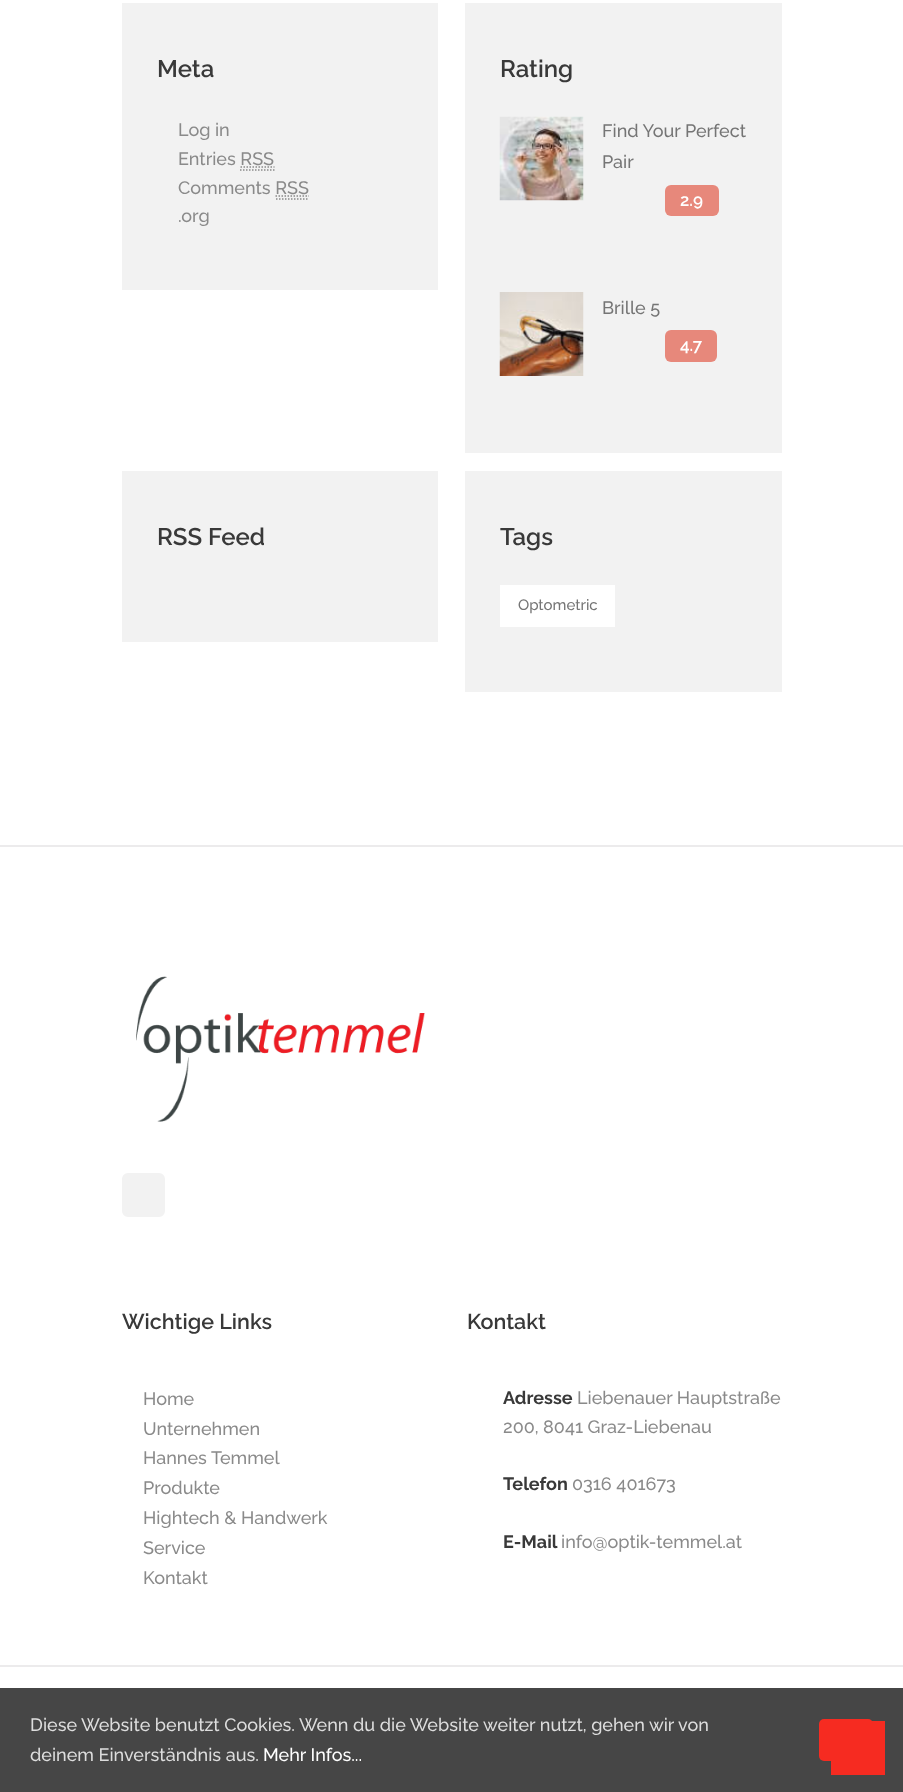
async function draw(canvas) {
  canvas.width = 903;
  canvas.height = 1792;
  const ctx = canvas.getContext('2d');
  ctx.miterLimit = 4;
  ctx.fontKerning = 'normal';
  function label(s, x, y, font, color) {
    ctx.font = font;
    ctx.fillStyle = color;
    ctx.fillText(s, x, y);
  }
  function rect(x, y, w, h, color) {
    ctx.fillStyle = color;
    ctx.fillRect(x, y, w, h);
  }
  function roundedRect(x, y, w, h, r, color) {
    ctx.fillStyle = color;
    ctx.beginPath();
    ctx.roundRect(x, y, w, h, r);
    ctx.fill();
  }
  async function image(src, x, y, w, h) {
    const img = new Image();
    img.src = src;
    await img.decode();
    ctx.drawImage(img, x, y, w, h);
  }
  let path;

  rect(0, 0, 903, 1792, '#fff');
  rect(122, 3, 316, 287, '#f2f2f2');
  label('Meta', 157, 77, '600 24px Raleway', '#393939');
  label('Log in', 178, 136, '500 18px Raleway', '#8a8a8a');
  label('Entries RSS', 178, 165, '500 18px Raleway', '#8a8a8a');
  path = new Path2D('M240 170H274.5M240.5 167H274.5');
  ctx.strokeStyle = '#8a8a8a';
  ctx.lineWidth = 1.5;
  ctx.setLineDash([1.5, 1.5]);
  ctx.stroke(path);
  label('Comments RSS', 178, 194, '500 18px Raleway', '#8a8a8a');
  path = new Path2D('M276 199H309M275.5 196H309');
  ctx.stroke(path);
  label('.org', 178, 222, '500 18px Raleway', '#8a8a8a');
  rect(465, 3, 317, 450, '#f2f2f2');
  label('Rating', 500, 77, '600 24px Raleway', '#393939');
  await image('assets/img1.png', 499, 116, 85, 85);
  label('Find Your Perfect', 602, 137, '500 18px Raleway', '#757575');
  label('Pair', 602, 168, '500 18px Raleway', '#757575');
  roundedRect(665, 185, 54, 31, 6, '#e7887b');
  label('2.9', 680, 206, '600 17px Raleway', '#fff');
  await image('assets/img2.png', 499, 292, 85, 84);
  label('Brille 5', 602, 314, '500 18px Raleway', '#757575');
  roundedRect(665, 330, 52, 32, 6, '#e7887b');
  label('4.7', 680, 351, '600 17px Raleway', '#fff');
  rect(122, 471, 316, 171, '#f2f2f2');
  label('RSS Feed', 157, 545, '600 24px Raleway', '#393939');
  rect(465, 471, 317, 221, '#f2f2f2');
  label('Tags', 500, 545, '600 24px Raleway', '#393939');
  rect(500, 585, 115, 42, '#fff');
  label('Optometric', 518, 610, '500 15px Raleway', '#757575');
  rect(0, 845, 903, 2, '#ecebec');
  await image('assets/img3.png', 136, 976, 289, 146);
  ctx.fillStyle = '#f2f2f2';
  ctx.beginPath();
  ctx.roundRect(123.5, 1174.5, 40, 41, 4.5);
  ctx.fill();
  ctx.strokeStyle = '#f2f2f2';
  ctx.lineWidth = 3;
  ctx.setLineDash([]);
  ctx.stroke();
  label('Wichtige Links', 122, 1329, '600 21.5px Raleway', '#393939');
  label('Home', 143, 1405, '500 18px Raleway', '#8a8a8a');
  label('Unternehmen', 143, 1435, '500 18px Raleway', '#8a8a8a');
  label('Hannes Temmel', 143, 1464, '500 18px Raleway', '#8a8a8a');
  label('Produkte', 143, 1494, '500 18px Raleway', '#8a8a8a');
  label('Hightech & Handwerk', 143, 1524, '500 18px Raleway', '#8a8a8a');
  label('Service', 143, 1554, '500 18px Raleway', '#8a8a8a');
  label('Kontakt', 143, 1584, '500 18px Raleway', '#8a8a8a');
  label('Kontakt', 467, 1329, '600 21.5px Raleway', '#393939');
  label('Adresse', 503, 1404, 'bold 18px Raleway', '#393939');
  label('Liebenauer Hauptstraße', 577, 1404, '500 18px Raleway', '#8a8a8a');
  label('200, 8041 Graz-Liebenau', 503, 1433, '500 18px Raleway', '#8a8a8a');
  label('Telefon', 503, 1490, 'bold 18px Raleway', '#393939');
  label('0316 401673', 572, 1490, '500 18px Raleway', '#8a8a8a');
  label('E-Mail', 503, 1548, 'bold 18px Raleway', '#393939');
  label('info@optik-temmel.at', 561, 1548, '500 18px Raleway', '#8a8a8a');
  rect(0, 1665, 903, 2, '#ecebec');
  rect(0, 1688, 903, 104, '#464646');
  label('Diese Website benutzt Cookies. Wenn du die Website weiter nutzt, gehen wir von', 30, 1731, '500 18px Raleway', '#ddd');
  label('deinem Einverständnis aus.', 30, 1761, '500 18px Raleway', '#ddd');
  label('Mehr Infos...', 263, 1761, '500 18px Raleway', '#fff');
  roundedRect(819, 1719, 54, 42, 5, '#f62b21');
  rect(831, 1721, 54, 54, '#f62b21');
}

draw(document.querySelector('canvas'));
